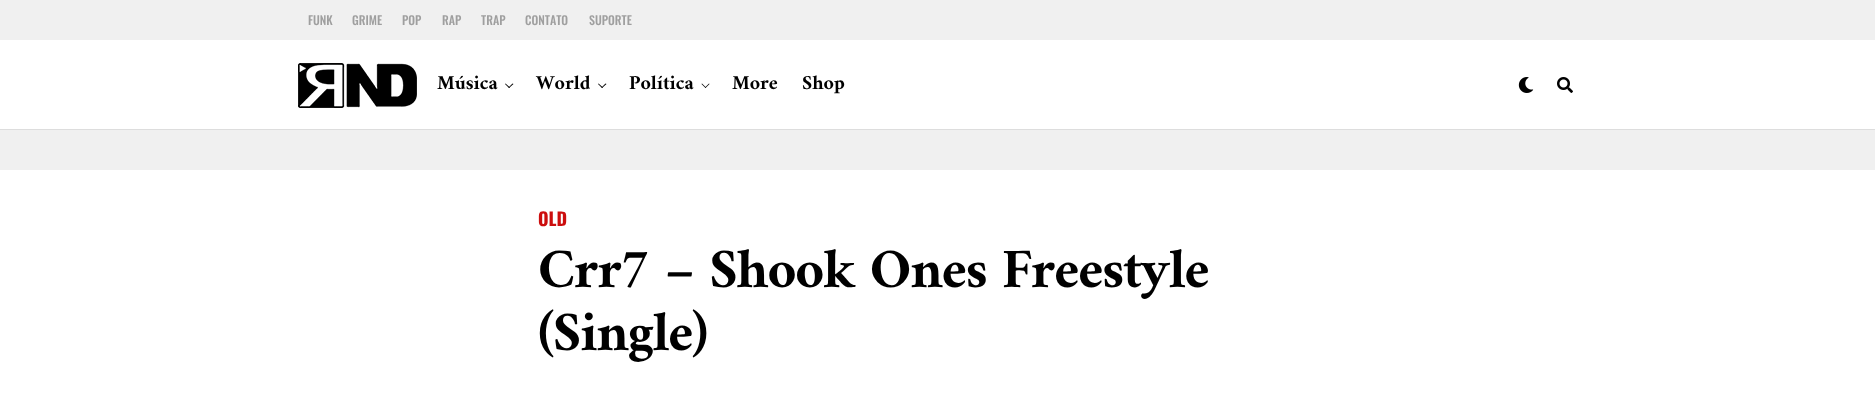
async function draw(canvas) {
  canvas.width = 1875;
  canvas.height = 393;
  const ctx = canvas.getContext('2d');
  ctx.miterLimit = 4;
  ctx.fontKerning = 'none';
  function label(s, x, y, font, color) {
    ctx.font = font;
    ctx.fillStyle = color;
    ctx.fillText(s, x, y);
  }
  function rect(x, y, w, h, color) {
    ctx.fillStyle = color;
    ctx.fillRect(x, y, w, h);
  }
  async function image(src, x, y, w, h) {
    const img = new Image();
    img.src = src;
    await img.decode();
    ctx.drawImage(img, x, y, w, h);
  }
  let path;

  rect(0, 0, 1875, 393, '#f0f0f0');
  label('FUNK', 308, 25, '500 12px Oswald', '#9f9f9f');
  label('GRIME', 352, 25, '500 12px Oswald', '#9f9f9f');
  label('POP', 402, 25, '500 12px Oswald', '#9f9f9f');
  label('RAP', 442, 25, '500 12px Oswald', '#9f9f9f');
  label('TRAP', 481, 25, '500 12px Oswald', '#9f9f9f');
  label('CONTATO', 525, 25, '500 12px Oswald', '#9f9f9f');
  label('SUPORTE', 589, 25, '500 12px Oswald', '#9f9f9f');
  rect(0, 40, 1875, 89, '#fff');
  rect(0, 129, 1875, 1, '#ddd');
  await image('assets/img1.png', 298, 63, 119, 45);
  label('Música', 437, 89, 'bold 20px Amiri', '#000');
  path = new Path2D('M512.5 83.5L513.5 84L509 88L508.5 87.5Z');
  ctx.fill(path);
  path = new Path2D('M505.5 83.5L510 87.5L509 88L505 84Z');
  ctx.fill(path);
  label('World', 536, 89, 'bold 20px Amiri', '#000');
  path = new Path2D('M605.5 83.5L606.5 84L602 88L601.5 87.5Z');
  ctx.fill(path);
  path = new Path2D('M598.5 83.5L603 87.5L602 88L598 84Z');
  ctx.fill(path);
  label('Política', 629, 89, 'bold 20px Amiri', '#000');
  path = new Path2D('M709 83.5L709.5 84L705.5 88L705 87.5Z');
  ctx.fill(path);
  path = new Path2D('M702 83.5L706 87.5L705.5 88L701.5 84Z');
  ctx.fill(path);
  label('More', 732, 89, 'bold 20px Amiri', '#000');
  label('Shop', 802, 89, 'bold 20px Amiri', '#000');
  await image('assets/img2.png', 1518, 77, 16, 16);
  await image('assets/img3.png', 1557, 77, 16, 16);
  rect(0, 170, 1875, 223, '#fff');
  label('OLD', 538, 226, 'bold 18px Oswald', '#cc0e0e');
  ctx.letterSpacing = '-1.1px';
  label('Crr7 – Shook Ones Freestyle', 538, 287, 'bold 56px Amiri', '#000');
  label('(Single)', 538, 350, 'bold 56px Amiri', '#000');
}

draw(document.querySelector('canvas'));
